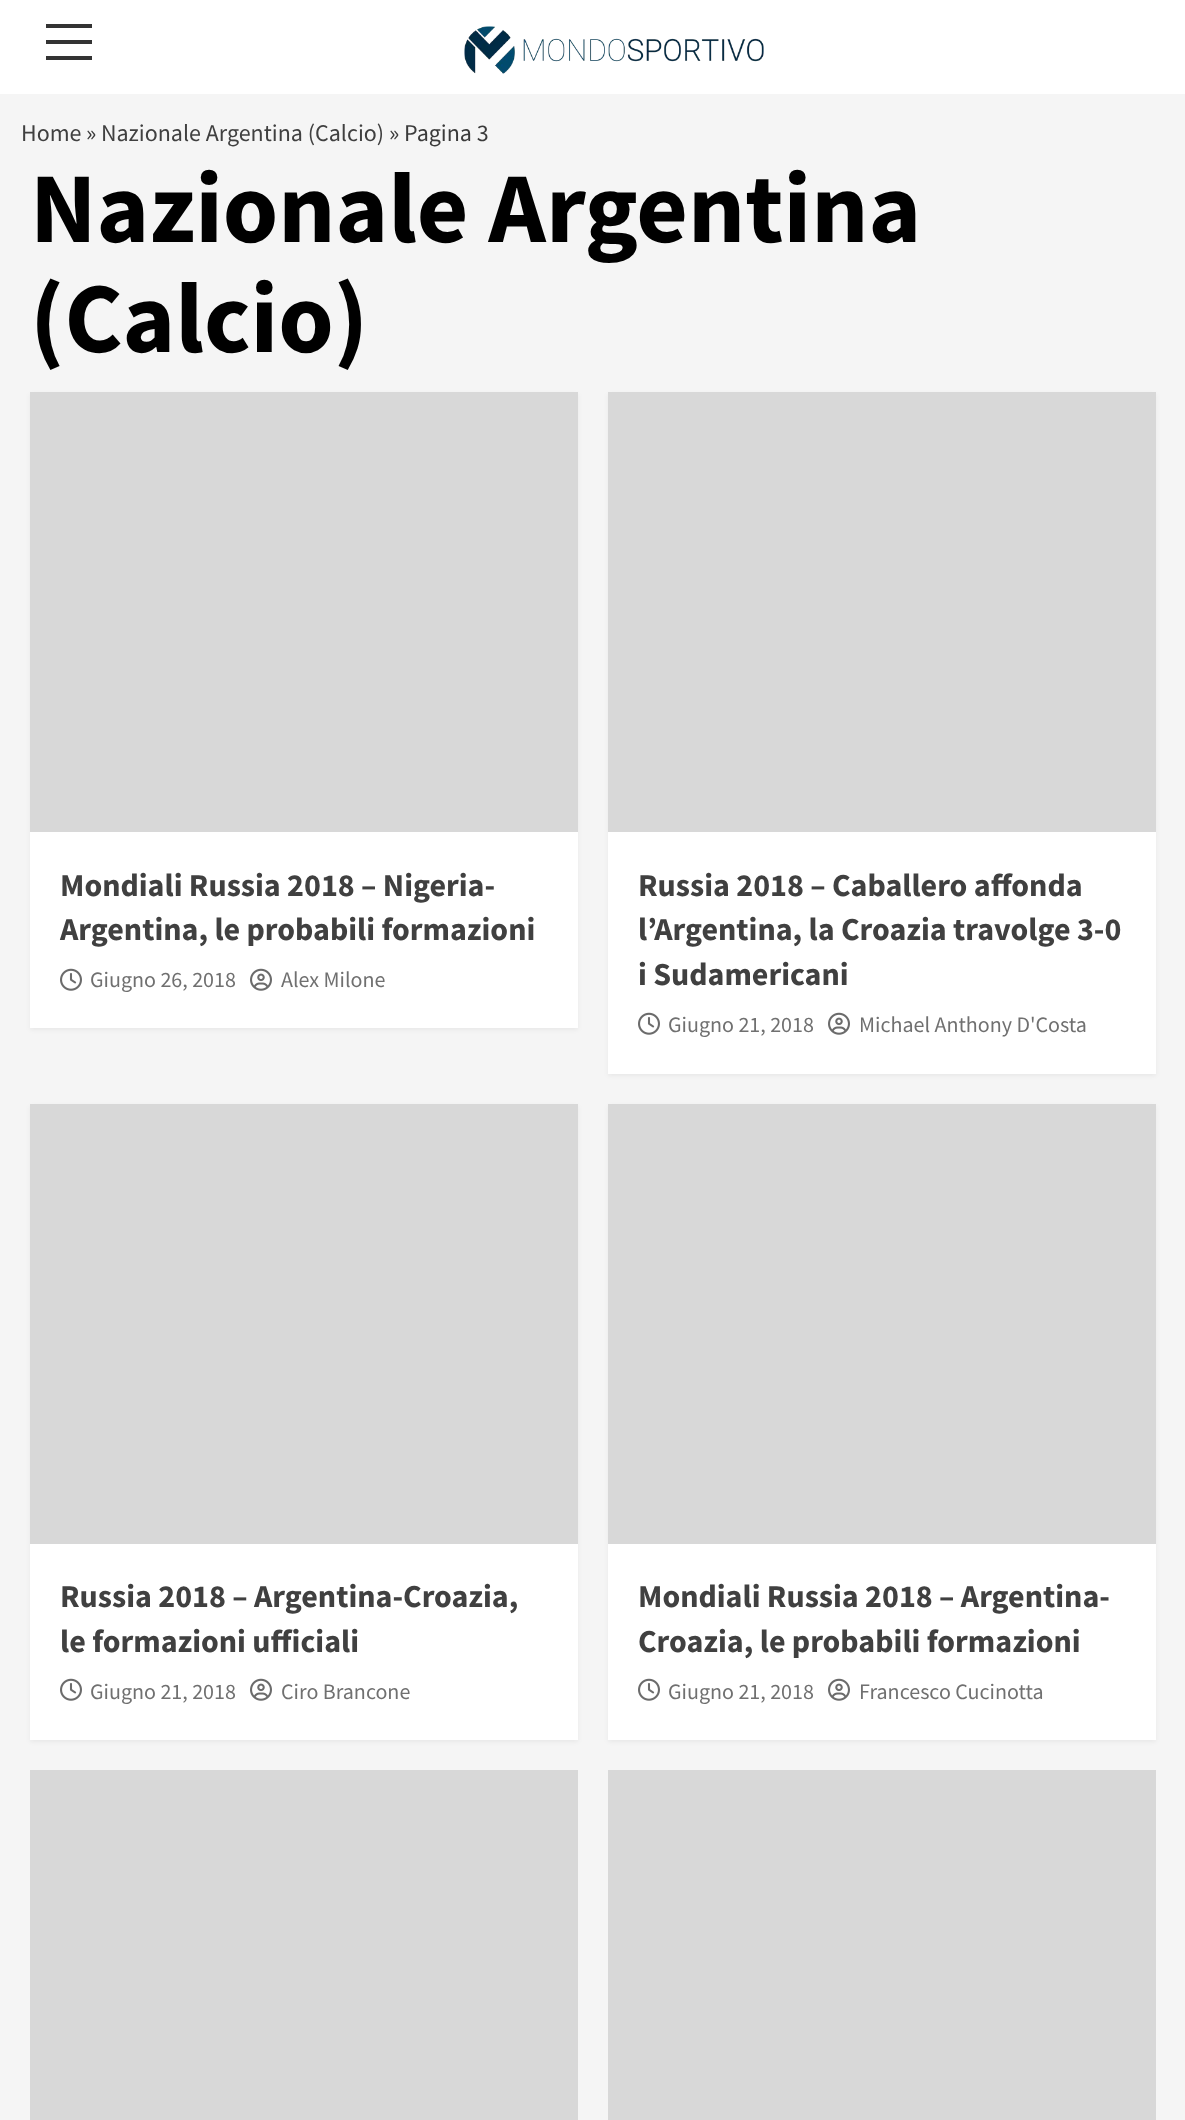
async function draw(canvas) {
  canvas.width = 1185;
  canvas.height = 2120;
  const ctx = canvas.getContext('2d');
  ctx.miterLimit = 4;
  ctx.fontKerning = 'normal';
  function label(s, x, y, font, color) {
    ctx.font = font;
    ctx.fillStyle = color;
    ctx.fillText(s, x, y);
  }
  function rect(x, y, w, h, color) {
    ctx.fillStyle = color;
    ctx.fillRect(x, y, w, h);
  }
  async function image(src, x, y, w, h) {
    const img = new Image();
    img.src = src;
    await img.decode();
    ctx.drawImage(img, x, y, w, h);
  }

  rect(0, 0, 1185, 2120, '#f5f5f5');
  rect(0, 0, 1185, 94, '#fff');
  await image('assets/img1.png', 464, 26, 300, 48);
  rect(46, 40, 46, 4, '#333');
  rect(46, 24, 46, 4, '#333');
  rect(46, 56, 46, 4, '#333');
  label('Home', 21, 141, '24px Source Sans Pro', '#404040');
  label('»', 86, 141, '24px Source Sans Pro', '#3a3a3a');
  label('Nazionale Argentina (Calcio)', 101, 141, '24px Source Sans Pro', '#404040');
  label('» Pagina 3', 389, 141, '24px Source Sans Pro', '#3a3a3a');
  label('Nazionale Argentina', 30, 242, 'bold 100px Source Sans Pro', '#000');
  label('(Calcio)', 30, 352, 'bold 100px Source Sans Pro', '#000');
  ctx.fillStyle = '#0000000d';
  ctx.filter = 'blur(2px)';
  ctx.beginPath();
  ctx.rect(30, 394, 548, 636);
  ctx.fill();
  ctx.filter = 'none';
  rect(30, 832, 548, 196, '#fff');
  rect(30, 392, 548, 440, '#d8d8d8');
  label('Mondiali Russia 2018 – Nigeria-', 60, 896, 'bold 32px Source Sans Pro', '#404040');
  label('Argentina, le probabili formazioni', 60, 940, 'bold 32px Source Sans Pro', '#404040');
  await image('assets/img2.png', 60, 968, 22, 23);
  label('Giugno 26, 2018', 90, 987, '22px Source Sans Pro', '#707070');
  await image('assets/img3.png', 250, 968, 22, 23);
  label('Alex Milone', 281, 987, '22px Source Sans Pro', '#707070');
  ctx.fillStyle = '#0000000d';
  ctx.filter = 'blur(2px)';
  ctx.beginPath();
  ctx.rect(608, 394, 548, 682);
  ctx.fill();
  ctx.filter = 'none';
  rect(608, 832, 548, 242, '#fff');
  rect(608, 392, 548, 440, '#d8d8d8');
  label('Russia 2018 – Caballero affonda', 638, 896, 'bold 32px Source Sans Pro', '#404040');
  label('l’Argentina, la Croazia travolge 3-0', 638, 940, 'bold 32px Source Sans Pro', '#404040');
  label('i Sudamericani', 638, 985, 'bold 32px Source Sans Pro', '#404040');
  await image('assets/img2.png', 638, 1012, 22, 23);
  label('Giugno 21, 2018', 668, 1032, '22px Source Sans Pro', '#707070');
  await image('assets/img3.png', 828, 1012, 22, 23);
  label('Michael Anthony D\'Costa', 859, 1032, '22px Source Sans Pro', '#707070');
  ctx.fillStyle = '#0000000d';
  ctx.filter = 'blur(2px)';
  ctx.beginPath();
  ctx.rect(30, 1106, 548, 636);
  ctx.fill();
  ctx.filter = 'none';
  rect(30, 1544, 548, 196, '#fff');
  rect(30, 1104, 548, 440, '#d8d8d8');
  label('Russia 2018 – Argentina-Croazia,', 60, 1607, 'bold 32px Source Sans Pro', '#404040');
  label('le formazioni ufficiali', 60, 1652, 'bold 32px Source Sans Pro', '#404040');
  await image('assets/img2.png', 60, 1678, 22, 23);
  label('Giugno 21, 2018', 90, 1699, '22px Source Sans Pro', '#707070');
  await image('assets/img3.png', 250, 1678, 22, 23);
  label('Ciro Brancone', 281, 1699, '22px Source Sans Pro', '#707070');
  ctx.fillStyle = '#0000000d';
  ctx.filter = 'blur(2px)';
  ctx.beginPath();
  ctx.rect(608, 1106, 548, 636);
  ctx.fill();
  ctx.filter = 'none';
  rect(608, 1544, 548, 196, '#fff');
  rect(608, 1104, 548, 440, '#d8d8d8');
  label('Mondiali Russia 2018 – Argentina-', 638, 1607, 'bold 32px Source Sans Pro', '#404040');
  label('Croazia, le probabili formazioni', 638, 1652, 'bold 32px Source Sans Pro', '#404040');
  await image('assets/img2.png', 638, 1678, 22, 23);
  label('Giugno 21, 2018', 668, 1699, '22px Source Sans Pro', '#707070');
  await image('assets/img3.png', 828, 1678, 22, 23);
  label('Francesco Cucinotta', 859, 1699, '22px Source Sans Pro', '#707070');
  rect(30, 1770, 548, 350, '#d8d8d8');
  rect(608, 1770, 548, 350, '#d8d8d8');
}

draw(document.querySelector('canvas'));
